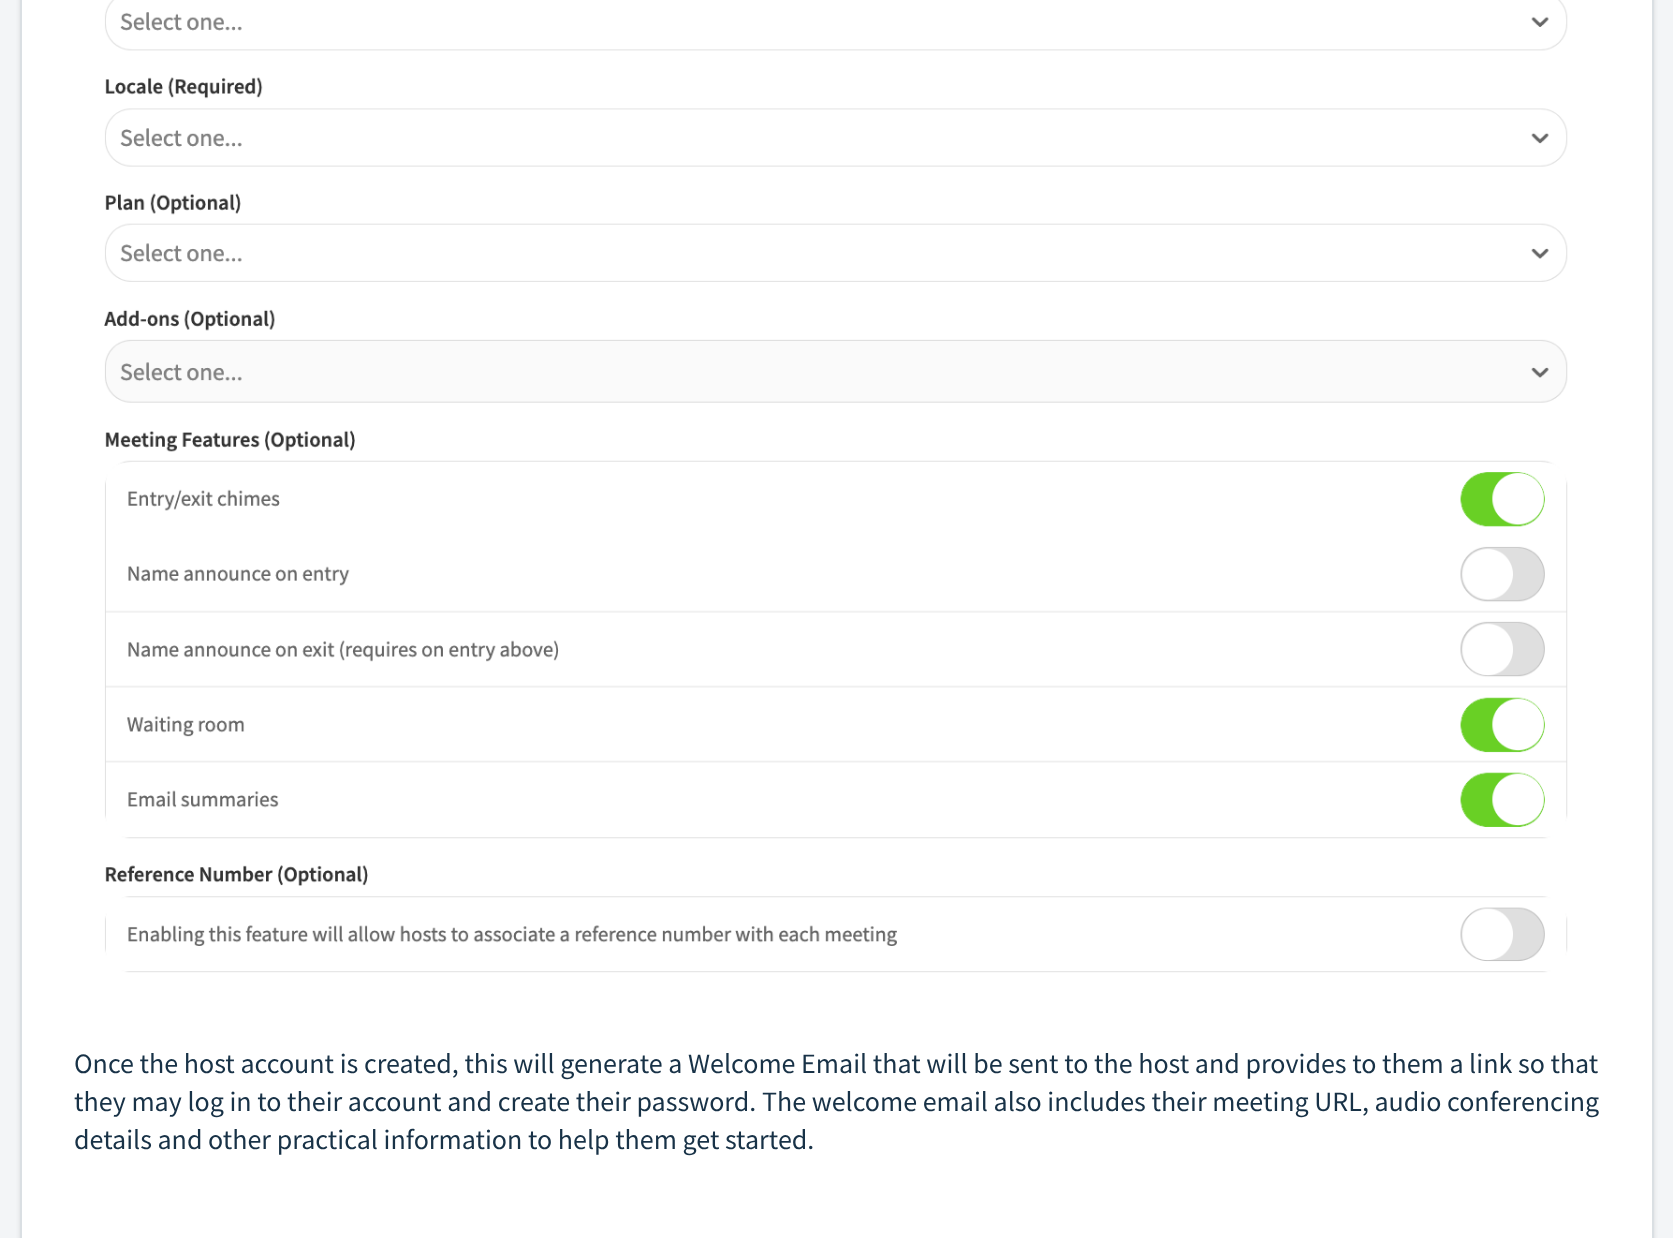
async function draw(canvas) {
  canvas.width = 1673;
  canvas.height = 1238;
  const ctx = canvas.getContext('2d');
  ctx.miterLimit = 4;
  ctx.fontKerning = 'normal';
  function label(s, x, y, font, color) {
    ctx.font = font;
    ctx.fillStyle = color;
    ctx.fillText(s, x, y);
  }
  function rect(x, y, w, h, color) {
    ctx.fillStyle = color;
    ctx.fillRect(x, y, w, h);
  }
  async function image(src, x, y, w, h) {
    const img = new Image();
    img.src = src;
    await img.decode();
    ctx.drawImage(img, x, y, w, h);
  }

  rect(0, 0, 1673, 1238, '#f3f5f7');
  ctx.fillStyle = '#3f3f4426';
  ctx.filter = 'blur(2px)';
  ctx.beginPath();
  ctx.roundRect(20, -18, 1634, 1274, 12);
  ctx.fill();
  ctx.filter = 'none';
  ctx.fillStyle = '#fff';
  ctx.beginPath();
  ctx.rect(21, -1, 1632, 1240);
  ctx.fill();
  ctx.strokeStyle = '#dadfe3';
  ctx.lineWidth = 2;
  ctx.stroke();
  await image('assets/img1.png', 104, 0, 1464, 973);
  label('Once the host account is created, this will generate a Welcome Email that will be sent to the host and provides to them a link so that', 74, 1073, '28px Source Sans Pro', '#183247');
  label('they may log in to their account and create their password. The welcome email also includes their meeting URL, audio conferencing', 74, 1111, '28px Source Sans Pro', '#183247');
  label('details and other practical information to help them get started.', 74, 1149, '28px Source Sans Pro', '#183247');
}

draw(document.querySelector('canvas'));
